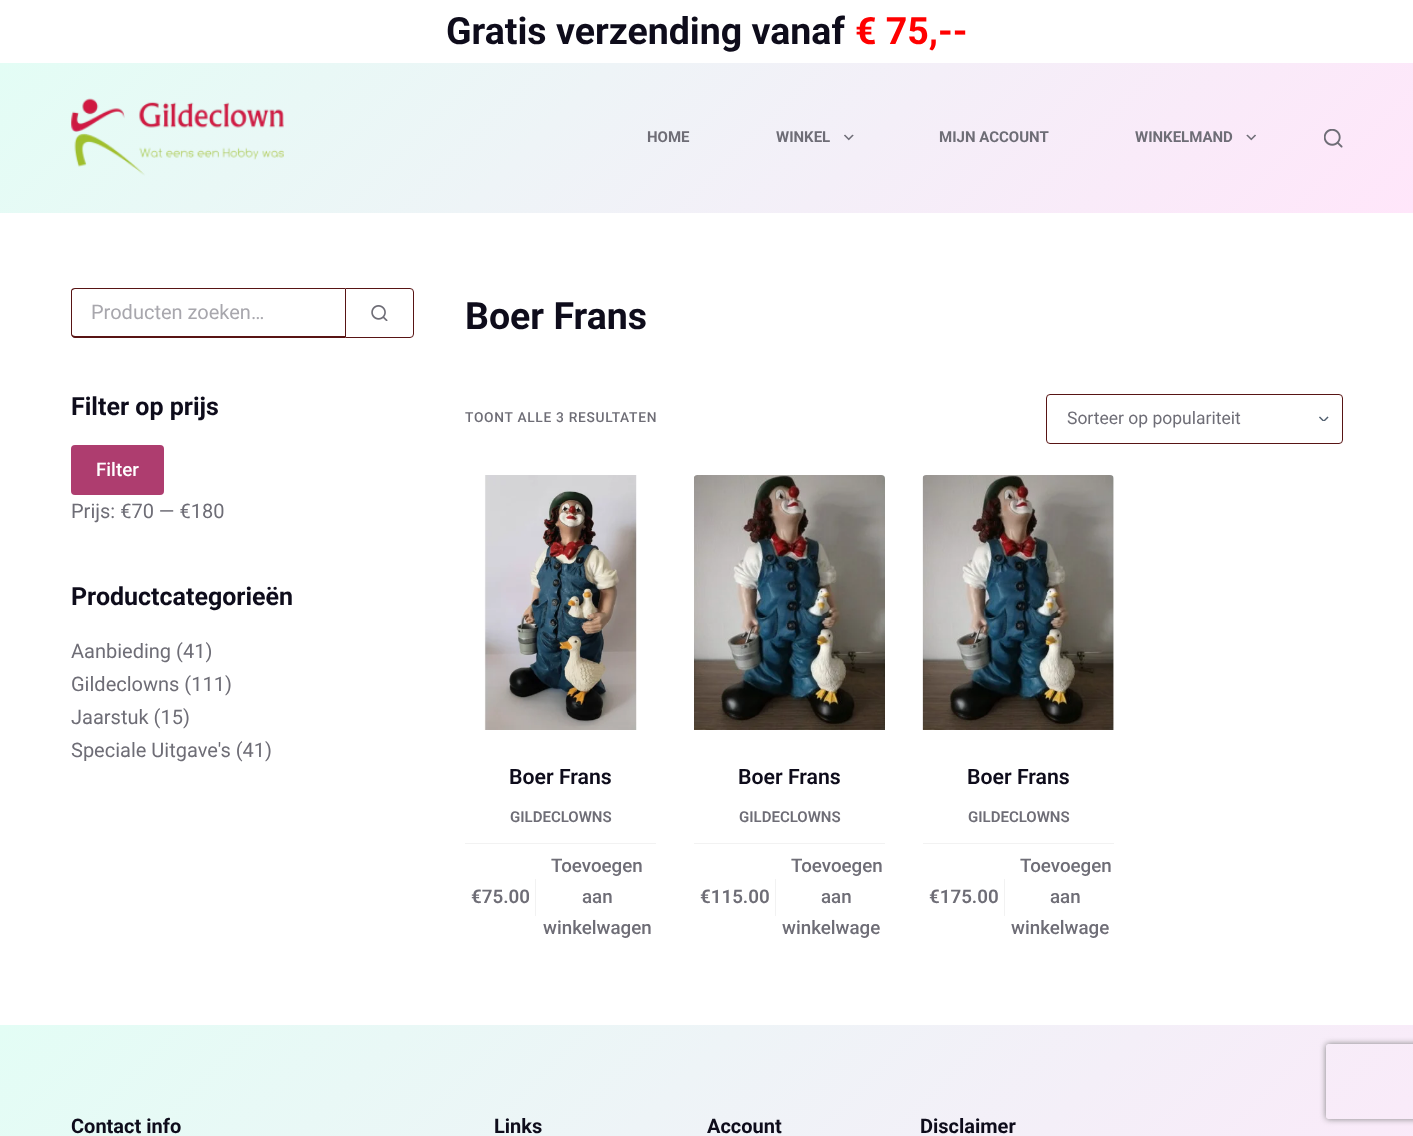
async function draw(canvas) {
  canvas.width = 1413;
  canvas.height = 1136;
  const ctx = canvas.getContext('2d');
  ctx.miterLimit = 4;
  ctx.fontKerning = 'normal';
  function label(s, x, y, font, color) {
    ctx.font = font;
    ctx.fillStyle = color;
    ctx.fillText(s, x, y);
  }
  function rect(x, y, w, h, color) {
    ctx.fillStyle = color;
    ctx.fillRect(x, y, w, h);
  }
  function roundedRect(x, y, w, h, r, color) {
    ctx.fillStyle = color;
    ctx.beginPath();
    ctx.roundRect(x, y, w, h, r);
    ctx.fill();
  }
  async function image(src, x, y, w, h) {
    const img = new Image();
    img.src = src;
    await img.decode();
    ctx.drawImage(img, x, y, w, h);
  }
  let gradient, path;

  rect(0, 0, 1413, 1136, '#fff');
  label('Gratis verzending vanaf', 446, 44, 'bold 37.5px Roboto', '#0e0c1b');
  label('€ 75,--', 855, 44, 'bold 37.5px Roboto', '#f00');
  gradient = ctx.createLinearGradient(316, -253, 1098, 528);
  gradient.addColorStop(0, '#e3fdf5');
  gradient.addColorStop(1, '#ffe6fa');
  ctx.fillStyle = gradient;
  ctx.fillRect(0, 63, 1413, 150);
  await image('assets/img1.png', 71, 98, 213, 78);
  label('HOME', 647, 142, 'bold 15px Roboto', '#6e6d76');
  label('WINKEL', 776, 142, 'bold 15px Roboto', '#6e6d76');
  await image('assets/img2.png', 844, 134, 10, 7);
  label('MIJN ACCOUNT', 939, 142, 'bold 15px Roboto', '#6e6d76');
  label('WINKELMAND', 1135, 142, 'bold 15px Roboto', '#6e6d76');
  await image('assets/img3.png', 1246, 134, 10, 7);
  await image('assets/img4.png', 1324, 129, 19, 19);
  ctx.fillStyle = '#581414';
  path = new Path2D('M75 288H345V338H75C73 338 71 336 71 334V291C71 289 73 288 75 288ZM75 289H345V336H75C74 336 72 335 72 334V291C72 290 74 289 75 289Z');
  ctx.fill(path, 'evenodd');
  label('Producten zoeken…', 91, 319, '20px Roboto', '#a8a7ad');
  ctx.beginPath();
  ctx.roundRect(345.5, 288.5, 68, 49, [0, 3.5, 3.5, 0]);
  ctx.strokeStyle = '#581414';
  ctx.stroke();
  await image('assets/img5.png', 371, 305, 17, 16);
  label('Filter op prijs', 71, 415, 'bold 25px Roboto', '#0e0c1b');
  roundedRect(71, 445, 93, 50, 4, '#ae3d6f');
  label('Filter', 96, 476, '500 18.75px Roboto', '#fff');
  label('Prijs: €70 — €180', 71, 518, '20px Roboto', '#6e6d76');
  label('Productcategorieën', 71, 605, 'bold 25px Roboto', '#0e0c1b');
  label('Aanbieding (41)', 71, 658, '20px Roboto', '#6e6d76');
  label('Gildeclowns (111)', 71, 691, '20px Roboto', '#6e6d76');
  label('Jaarstuk (15)', 71, 724, '20px Roboto', '#6e6d76');
  label('Speciale Uitgave\'s (41)', 71, 757, '20px Roboto', '#6e6d76');
  label('Boer Frans', 465, 329, 'bold 37.5px Roboto', '#0e0c1b');
  ctx.letterSpacing = '0.7px';
  label('TOONT ALLE 3 RESULTATEN', 465, 422, '500 13.75px Roboto', '#6e6d76');
  await image('assets/img6.png', 1319, 416, 10, 5);
  ctx.beginPath();
  ctx.roundRect(1046.5, 394.5, 296, 49, 3.5);
  ctx.stroke();
  ctx.letterSpacing = '0px';
  label('Sorteer op populariteit', 1067, 424, '17.5px Roboto', '#6e6d76');
  await image('assets/img7.png', 484, 475, 153, 255);
  label('Boer Frans', 509, 784, '600 21.25px Roboto', '#0e0c1b');
  label('GILDECLOWNS', 510, 822, '600 15px Roboto', '#6e6d76');
  rect(465, 843, 191, 1, '#f2f2f2');
  label('€75.00', 471, 903, '600 18.75px Roboto', '#6e6d76');
  rect(535, 879, 1, 37, '#f2f2f2');
  label('Toevoegen', 551, 872, '500 18.75px Roboto', '#6e6d76');
  label('aan', 582, 903, '500 18.75px Roboto', '#6e6d76');
  label('winkelwagen', 543, 934, '500 18.75px Roboto', '#6e6d76');
  await image('assets/img8.png', 694, 475, 191, 255);
  label('Boer Frans', 738, 784, '600 21.25px Roboto', '#0e0c1b');
  label('GILDECLOWNS', 739, 822, '600 15px Roboto', '#6e6d76');
  rect(694, 843, 191, 1, '#f2f2f2');
  label('€115.00', 700, 903, '600 18.75px Roboto', '#6e6d76');
  rect(775, 879, 1, 37, '#f2f2f2');
  label('Toevoegen', 791, 872, '500 18.75px Roboto', '#6e6d76');
  label('aan', 821, 903, '500 18.75px Roboto', '#6e6d76');
  label('winkelwage', 782, 934, '500 18.75px Roboto', '#6e6d76');
  await image('assets/img9.png', 922, 475, 192, 255);
  label('Boer Frans', 967, 784, '600 21.25px Roboto', '#0e0c1b');
  label('GILDECLOWNS', 968, 822, '600 15px Roboto', '#6e6d76');
  rect(923, 843, 191, 1, '#f2f2f2');
  label('€175.00', 929, 903, '600 18.75px Roboto', '#6e6d76');
  rect(1004, 879, 1, 37, '#f2f2f2');
  label('Toevoegen', 1020, 872, '500 18.75px Roboto', '#6e6d76');
  label('aan', 1050, 903, '500 18.75px Roboto', '#6e6d76');
  label('winkelwage', 1011, 934, '500 18.75px Roboto', '#6e6d76');
  gradient = ctx.createLinearGradient(235, 790, 1179, 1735);
  gradient.addColorStop(0, '#e3fdf5');
  gradient.addColorStop(1, '#ffe6fa');
  ctx.fillStyle = gradient;
  ctx.fillRect(0, 1025, 1413, 111);
  label('Contact info', 71, 1133, 'bold 20px Roboto', '#0e0c1b');
  label('Links', 494, 1133, 'bold 20px Roboto', '#0e0c1b');
  label('Account', 707, 1133, 'bold 20px Roboto', '#0e0c1b');
  label('Disclaimer', 920, 1133, 'bold 20px Roboto', '#0e0c1b');
  ctx.save();
  path = new Path2D('M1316 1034H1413V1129H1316ZM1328.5 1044H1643.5C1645 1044 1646 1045 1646 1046.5V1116.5C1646 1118 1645 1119 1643.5 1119H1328.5C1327 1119 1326 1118 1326 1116.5V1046.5C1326 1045 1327 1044 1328.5 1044Z');
  ctx.clip(path, 'evenodd');
  ctx.fillStyle = '#808080';
  ctx.filter = 'blur(3px)';
  ctx.beginPath();
  ctx.roundRect(1326, 1044, 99, 75, 2.5);
  ctx.fill();
  ctx.filter = 'none';
  ctx.restore();
}

draw(document.querySelector('canvas'));
